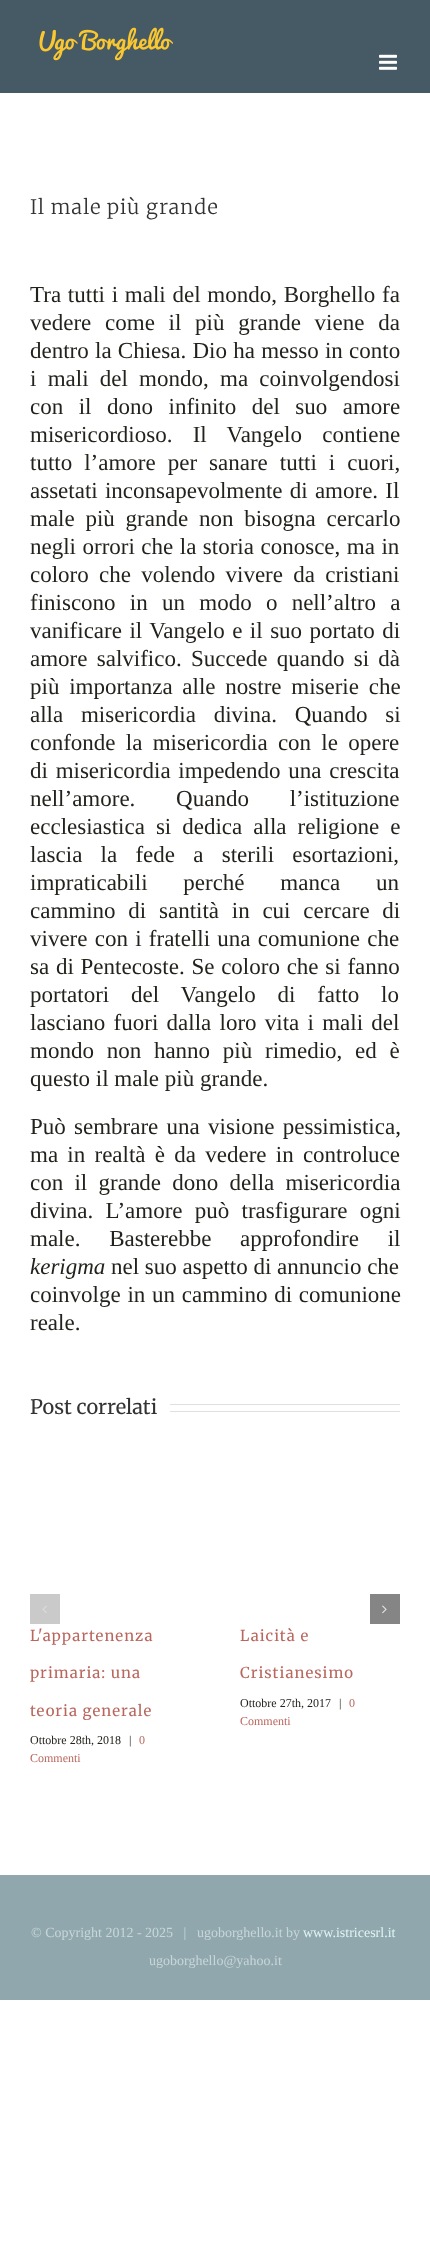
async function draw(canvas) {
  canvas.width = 430;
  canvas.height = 2256;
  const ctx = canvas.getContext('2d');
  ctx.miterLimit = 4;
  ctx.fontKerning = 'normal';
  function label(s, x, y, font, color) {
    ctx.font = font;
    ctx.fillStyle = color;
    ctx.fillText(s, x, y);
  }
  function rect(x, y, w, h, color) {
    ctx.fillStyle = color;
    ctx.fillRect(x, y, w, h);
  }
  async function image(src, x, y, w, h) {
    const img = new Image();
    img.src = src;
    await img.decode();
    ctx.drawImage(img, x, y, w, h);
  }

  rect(0, 0, 430, 2256, '#fff');
  rect(0, 0, 430, 93, '#455a64');
  await image('assets/img1.png', 39, 27, 134, 34);
  await image('assets/img2.png', 379, 54, 18, 16);
  ctx.letterSpacing = '1px';
  label('Il male più grande', 30, 214, '300 20px Merriweather', '#333');
  ctx.letterSpacing = '0px';
  ctx.wordSpacing = '1px';
  label('Tra tutti i mali del mondo, Borghello fa', 30, 302, '23px Liberation Serif', '#23231d');
  ctx.wordSpacing = '8px';
  label('vedere come il più grande viene da', 30, 330, '23px Liberation Serif', '#23231d');
  ctx.wordSpacing = '0.5px';
  label('dentro la Chiesa. Dio ha messo in conto', 30, 358, '23px Liberation Serif', '#23231d');
  ctx.wordSpacing = '5.5px';
  label('i mali del mondo, ma coinvolgendosi', 30, 386, '23px Liberation Serif', '#23231d');
  ctx.wordSpacing = '9.75px';
  label('con il dono infinito del suo amore', 30, 414, '23px Liberation Serif', '#23231d');
  ctx.wordSpacing = '14.5px';
  label('misericordioso. Il Vangelo contiene', 30, 442, '23px Liberation Serif', '#23231d');
  ctx.wordSpacing = '6.25px';
  label('tutto l’amore per sanare tutti i cuori,', 30, 470, '23px Liberation Serif', '#23231d');
  ctx.wordSpacing = '1.5px';
  label('assetati inconsapevolmente di amore. Il', 30, 498, '23px Liberation Serif', '#23231d');
  ctx.wordSpacing = '5px';
  label('male più grande non bisogna cercarlo', 30, 526, '23px Liberation Serif', '#23231d');
  ctx.wordSpacing = '0.75px';
  label('negli orrori che la storia conosce, ma in', 30, 554, '23px Liberation Serif', '#23231d');
  ctx.wordSpacing = '4.5px';
  label('coloro che volendo vivere da cristiani', 30, 582, '23px Liberation Serif', '#23231d');
  ctx.wordSpacing = '8.5px';
  label('finiscono in un modo o nell’altro a', 30, 610, '23px Liberation Serif', '#23231d');
  ctx.wordSpacing = '1.75px';
  label('vanificare il Vangelo e il suo portato di', 30, 638, '23px Liberation Serif', '#23231d');
  ctx.wordSpacing = '3.5px';
  label('amore salvifico. Succede quando si dà', 30, 666, '23px Liberation Serif', '#23231d');
  ctx.wordSpacing = '4px';
  label('più importanza alle nostre miserie che', 30, 694, '23px Liberation Serif', '#23231d');
  ctx.wordSpacing = '12px';
  label('alla misericordia divina. Quando si', 30, 722, '23px Liberation Serif', '#23231d');
  ctx.wordSpacing = '4.5px';
  label('confonde la misericordia con le opere', 30, 750, '23px Liberation Serif', '#23231d');
  ctx.wordSpacing = '2px';
  label('di misericordia impedendo una crescita', 30, 778, '23px Liberation Serif', '#23231d');
  ctx.wordSpacing = '35px';
  label('nell’amore. Quando l’istituzione', 30, 806, '23px Liberation Serif', '#23231d');
  ctx.wordSpacing = '5.25px';
  label('ecclesiastica si dedica alla religione e', 30, 834, '23px Liberation Serif', '#23231d');
  ctx.wordSpacing = '12.5px';
  label('lascia la fede a sterili esortazioni,', 30, 862, '23px Liberation Serif', '#23231d');
  ctx.wordSpacing = '30px';
  label('impraticabili perché manca un', 30, 890, '23px Liberation Serif', '#23231d');
  ctx.wordSpacing = '7px';
  label('cammino di santità in cui cercare di', 30, 918, '23px Liberation Serif', '#23231d');
  ctx.wordSpacing = '1.5px';
  label('vivere con i fratelli una comunione che', 30, 946, '23px Liberation Serif', '#23231d');
  ctx.wordSpacing = '1px';
  label('sa di Pentecoste. Se coloro che si fanno', 30, 974, '23px Liberation Serif', '#23231d');
  ctx.wordSpacing = '16px';
  label('portatori del Vangelo di fatto lo', 30, 1002, '23px Liberation Serif', '#23231d');
  ctx.wordSpacing = '2.5px';
  label('lasciano fuori dalla loro vita i mali del', 30, 1030, '23px Liberation Serif', '#23231d');
  ctx.wordSpacing = '7px';
  label('mondo non hanno più rimedio, ed è', 30, 1058, '23px Liberation Serif', '#23231d');
  ctx.wordSpacing = '0px';
  label('questo il male più grande.', 30, 1086, '23px Liberation Serif', '#23231d');
  ctx.wordSpacing = '2.5px';
  label('Può sembrare una visione pessimistica,', 30, 1134, '23px Liberation Serif', '#23231d');
  ctx.wordSpacing = '3.5px';
  label('ma in realtà è da vedere in controluce', 30, 1162, '23px Liberation Serif', '#23231d');
  ctx.wordSpacing = '5.5px';
  label('con il grande dono della misericordia', 30, 1190, '23px Liberation Serif', '#23231d');
  ctx.wordSpacing = '6.5px';
  label('divina. L’amore può trasfigurare ogni', 30, 1218, '23px Liberation Serif', '#23231d');
  ctx.wordSpacing = '23px';
  label('male. Basterebbe approfondire il', 30, 1246, '23px Liberation Serif', '#23231d');
  ctx.wordSpacing = '0px';
  label('kerigma', 30, 1274, 'italic 23px Liberation Serif', '#23231d');
  label('nel suo aspetto di annuncio che', 111, 1274, '23px Liberation Serif', '#23231d');
  ctx.wordSpacing = '1px';
  label('coinvolge in un cammino di comunione', 30, 1302, '23px Liberation Serif', '#23231d');
  ctx.wordSpacing = '0px';
  label('reale.', 30, 1330, '23px Liberation Serif', '#23231d');
  label('Post correlati', 30, 1414, '20px Merriweather', '#333');
  rect(170, 1404, 230, 1, '#e0dede');
  rect(170, 1411, 230, 1, '#e0dede');
  rect(30, 1594, 30, 30, '#cacaca');
  await image('assets/img3.png', 42, 1605, 5, 8);
  rect(370, 1594, 30, 30, '#858585');
  await image('assets/img4.png', 382, 1605, 5, 9);
  ctx.letterSpacing = '1px';
  label('L\'appartenenza', 30, 1641, '15px Merriweather', '#b9675e');
  label('primaria: una', 30, 1678, '15px Merriweather', '#b9675e');
  label('teoria generale', 30, 1716, '15px Merriweather', '#b9675e');
  ctx.letterSpacing = '0px';
  label('Ottobre 28th, 2018', 30, 1744, '12px Liberation Serif', '#23231d');
  label('|', 129, 1744, '12px Liberation Serif', '#23231d');
  label('0', 139, 1744, '12px Liberation Serif', '#b9675e');
  label('Commenti', 30, 1762, '12px Liberation Serif', '#b9675e');
  ctx.letterSpacing = '1px';
  label('Laicità e', 240, 1641, '15px Merriweather', '#b9675e');
  label('Cristianesimo', 240, 1678, '15px Merriweather', '#b9675e');
  ctx.letterSpacing = '0px';
  label('Ottobre 27th, 2017', 240, 1707, '12px Liberation Serif', '#23231d');
  label('|', 339, 1707, '12px Liberation Serif', '#23231d');
  label('0', 349, 1707, '12px Liberation Serif', '#b9675e');
  label('Commenti', 240, 1725, '12px Liberation Serif', '#b9675e');
  rect(0, 1875, 430, 125, '#90a8ad');
  label('© Copyright 2012 - 2025   |   ugoborghello.it by', 31, 1937, '14px Liberation Serif', '#c8d6d9');
  label('www.istricesrl.it', 303, 1937, '14px Liberation Serif', '#e1f4f3');
  label('ugoborghello@yahoo.it', 149, 1965, '14px Liberation Serif', '#c8d6d9');
}

draw(document.querySelector('canvas'));
